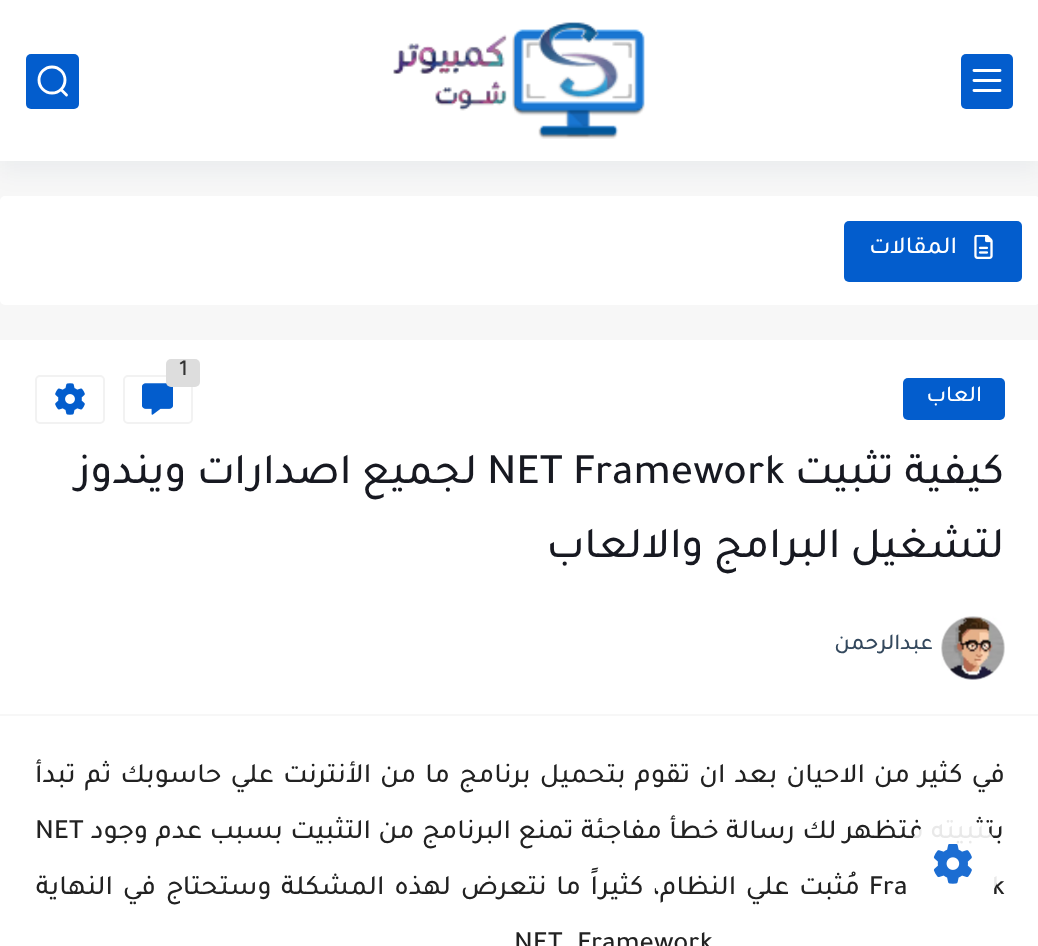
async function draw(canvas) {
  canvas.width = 1038;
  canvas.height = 946;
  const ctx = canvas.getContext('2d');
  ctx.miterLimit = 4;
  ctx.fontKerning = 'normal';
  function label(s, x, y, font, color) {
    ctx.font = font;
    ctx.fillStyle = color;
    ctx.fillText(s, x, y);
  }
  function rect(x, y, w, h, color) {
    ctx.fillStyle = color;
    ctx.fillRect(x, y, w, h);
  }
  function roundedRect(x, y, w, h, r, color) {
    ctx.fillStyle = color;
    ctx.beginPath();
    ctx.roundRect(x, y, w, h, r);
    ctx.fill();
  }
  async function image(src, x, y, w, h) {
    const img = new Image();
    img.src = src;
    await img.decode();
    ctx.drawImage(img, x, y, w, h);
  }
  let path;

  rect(0, 0, 1038, 946, '#f7f7f7');
  roundedRect(0, 196, 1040, 109, 5, '#fff');
  ctx.fillStyle = '#09204c0d';
  ctx.filter = 'blur(12px)';
  ctx.beginPath();
  ctx.rect(0, 11, 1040, 161);
  ctx.fill();
  ctx.filter = 'none';
  rect(0, 0, 1038, 161, '#fff');
  roundedRect(961, 54, 52, 55, 5, '#035dcd');
  path = new Path2D('M974 80.5H1000M974 70.5H1000M974 90.5H1000');
  ctx.strokeStyle = '#fff';
  ctx.lineWidth = 2.9;
  ctx.lineCap = 'round';
  ctx.lineJoin = 'round';
  ctx.stroke(path);
  await image('assets/img1.png', 393, 21, 252, 118);
  roundedRect(26, 54, 53, 55, 5, '#035dcd');
  ctx.beginPath();
  ctx.arc(52, 80, 13, 0, 2 * Math.PI);
  ctx.stroke();
  path = new Path2D('M61.5 90L66.5 95');
  ctx.stroke(path);
  roundedRect(844, 221, 178, 61, 5, '#035dcd');
  await image('assets/img2.png', 974, 235, 19, 24);
  ctx.direction = 'rtl';
  label('المقالات', 957, 253, '500 24.5px Tajawal', '#fff');
  rect(0, 340, 1038, 374, '#fff');
  ctx.beginPath();
  ctx.roundRect(124, 376, 68, 47, 4);
  ctx.strokeStyle = '#f2f2f2';
  ctx.lineWidth = 2;
  ctx.lineJoin = 'miter';
  ctx.stroke();
  await image('assets/img3.png', 142, 383, 31, 32);
  roundedRect(166, 359, 34, 28, 5, '#ddd');
  ctx.direction = 'ltr';
  label('1', 179, 375, '500 22.75px Tajawal', '#333');
  ctx.beginPath();
  ctx.roundRect(36, 376, 68, 47, 4);
  ctx.stroke();
  await image('assets/img4.png', 55, 383, 30, 32);
  roundedRect(903, 378, 102, 42, 5, '#035dcd');
  ctx.direction = 'rtl';
  label('العاب', 982, 401, '500 22.75px Tajawal', '#fff');
  label('كيفية تثبيت', 1004, 483, '500 43.75px Tajawal', '#171921');
  ctx.direction = 'ltr';
  label('NET Framework', 487, 483, '500 43.75px Tajawal', '#171921');
  ctx.direction = 'rtl';
  label('لجميع اصدارات ويندوز', 477, 483, '500 43.75px Tajawal', '#171921');
  label('لتشغيل البرامج والالعاب', 1004, 557, '500 43.75px Tajawal', '#171921');
  await image('assets/img5.png', 941, 616, 64, 64);
  label('عبدالرحمن', 933, 649, '500 22.75px Tajawal', '#34495e');
  rect(0, 716, 1038, 230, '#fff');
  ctx.wordSpacing = '2.4px';
  label('في كثير من الاحيان بعد ان تقوم بتحميل برنامج ما من الأنترنت علي حاسوبك ثم تبدأ', 1005, 782, '500 28px Tajawal', '#222');
  ctx.wordSpacing = '0.75px';
  label('بتثبيته فتظهر لك رسالة خطأ مفاجئة تمنع البرنامج من التثبيت بسبب عدم وجود', 1004, 838, '500 28px Tajawal', '#222');
  ctx.wordSpacing = '0px';
  ctx.direction = 'ltr';
  label('NET', 35, 838, '500 28px Tajawal', '#222');
  label('k', 992, 894, '500 28px Tajawal', '#222');
  label('Fra', 869, 894, '500 28px Tajawal', '#222');
  ctx.wordSpacing = '3.1px';
  ctx.direction = 'rtl';
  label('مُثبت علي النظام، كثيراً ما نتعرض لهذه المشكلة وستحتاج في النهاية', 860, 894, '500 28px Tajawal', '#222');
  ctx.wordSpacing = '8px';
  ctx.direction = 'ltr';
  label('NET Framework', 514, 950, '500 28px Tajawal', '#222');
  ctx.fillStyle = '#ffffffe6';
  ctx.beginPath();
  ctx.arc(953, 864, 48, 0, 2 * Math.PI);
  ctx.fill();
  await image('assets/img6.png', 933, 844, 39, 40);
}

draw(document.querySelector('canvas'));
